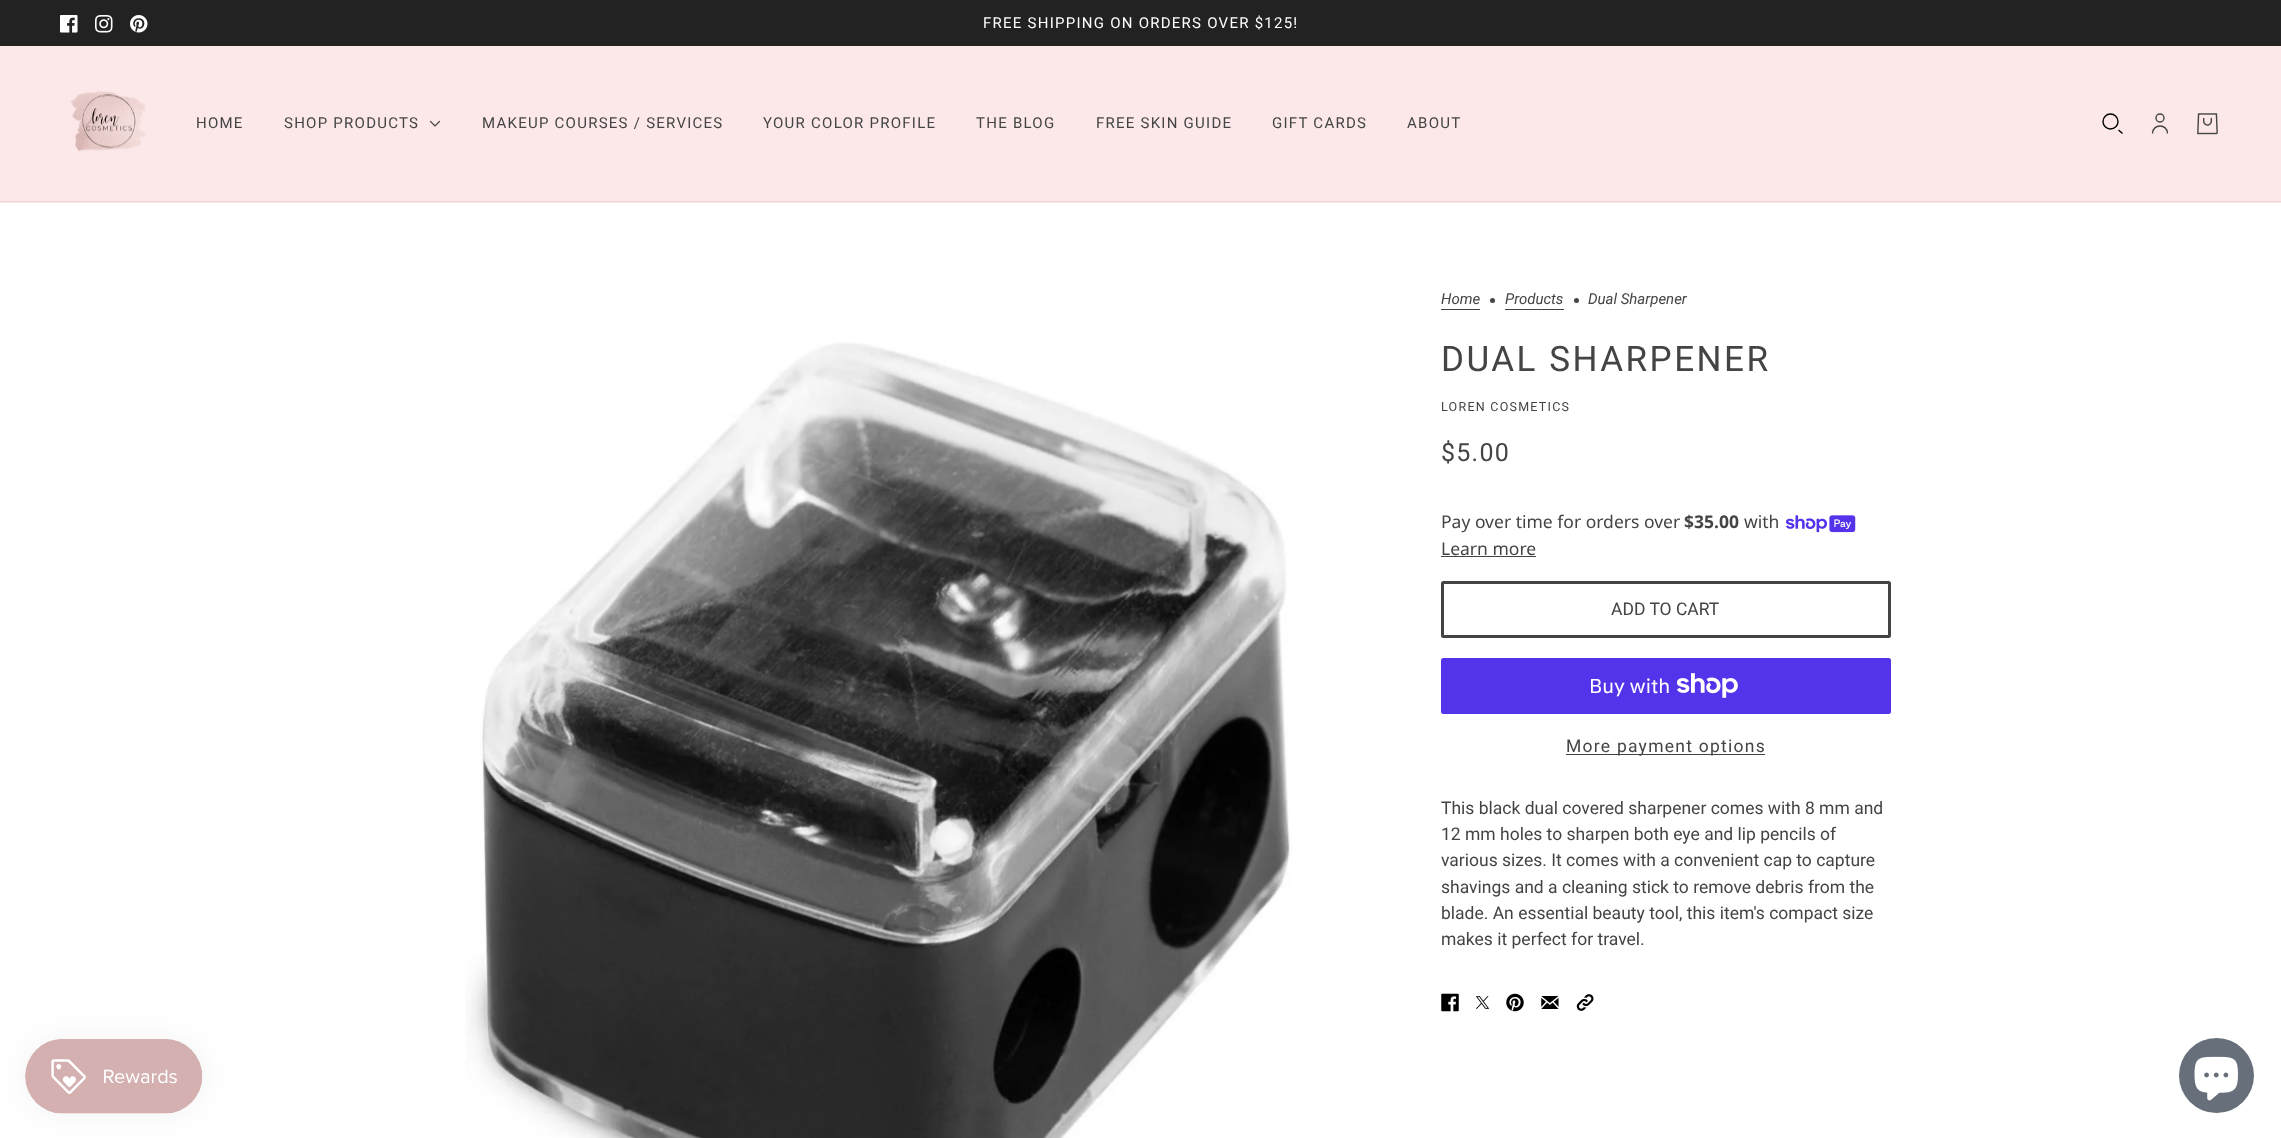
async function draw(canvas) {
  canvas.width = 2281;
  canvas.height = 1138;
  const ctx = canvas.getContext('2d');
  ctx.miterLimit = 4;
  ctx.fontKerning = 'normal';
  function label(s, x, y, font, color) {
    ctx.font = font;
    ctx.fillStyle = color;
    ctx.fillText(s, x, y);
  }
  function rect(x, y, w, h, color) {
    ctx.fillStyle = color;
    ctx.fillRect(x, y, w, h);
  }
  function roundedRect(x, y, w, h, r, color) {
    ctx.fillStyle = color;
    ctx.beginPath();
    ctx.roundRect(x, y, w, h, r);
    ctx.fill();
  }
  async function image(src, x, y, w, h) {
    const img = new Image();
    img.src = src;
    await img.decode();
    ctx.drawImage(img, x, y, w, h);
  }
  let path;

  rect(0, 0, 2281, 1138, '#fff');
  rect(0, 0, 2281, 46, '#222');
  await image('assets/img1.png', 60, 15, 18, 18);
  await image('assets/img2.png', 95, 15, 18, 18);
  await image('assets/img3.png', 130, 15, 18, 18);
  ctx.letterSpacing = '1.25px';
  label('FREE SHIPPING ON ORDERS OVER $125!', 983, 28, '15px Roboto', '#fff');
  rect(0, 46, 2281, 157, '#fce8e9');
  await image('assets/img4.png', 71, 91, 75, 61);
  label('HOME', 196, 128, '15px Roboto', '#444');
  label('SHOP PRODUCTS', 284, 128, '15px Roboto', '#444');
  await image('assets/img5.png', 429, 120, 12, 7);
  label('MAKEUP COURSES / SERVICES', 482, 128, '15px Roboto', '#444');
  label('YOUR COLOR PROFILE', 763, 128, '15px Roboto', '#444');
  label('THE BLOG', 976, 128, '15px Roboto', '#444');
  label('FREE SKIN GUIDE', 1096, 128, '15px Roboto', '#444');
  label('GIFT CARDS', 1272, 128, '15px Roboto', '#444');
  label('ABOUT', 1407, 128, '15px Roboto', '#444');
  ctx.beginPath();
  ctx.arc(2110.5, 121.5, 7.5, 0, 2 * Math.PI);
  ctx.strokeStyle = '#000';
  ctx.lineWidth = 1.4;
  ctx.stroke();
  path = new Path2D('M2118.5 130L2122.5 133.5');
  ctx.stroke(path);
  ctx.beginPath();
  ctx.arc(2160, 118, 4, 0, 2 * Math.PI);
  ctx.strokeStyle = '#444';
  ctx.stroke();
  path = new Path2D('M2152.5 133.5C2152.5 123.5 2167.5 123.5 2167.5 133.5');
  ctx.stroke(path);
  await image('assets/img6.png', 2197, 113, 21, 22);
  rect(0, 201, 2281, 1, '#ead8d9');
  await image('assets/img7.png', 465, 342, 827, 796);
  ctx.letterSpacing = '0px';
  label('Home', 1441, 304, 'italic 15px Roboto', '#444');
  rect(1441, 309, 39, 1, '#444');
  ctx.beginPath();
  ctx.arc(1492.5, 300.5, 2.5, 0, 2 * Math.PI);
  ctx.fill();
  label('Products', 1505, 304, 'italic 15px Roboto', '#444');
  rect(1505, 309, 59, 1, '#444');
  ctx.beginPath();
  ctx.arc(1576.5, 300.5, 2.5, 0, 2 * Math.PI);
  ctx.fill();
  label('Dual Sharpener', 1588, 304, 'italic 15px Roboto', '#444');
  ctx.letterSpacing = '2.5px';
  label('DUAL SHARPENER', 1441, 371, '35px Roboto', '#444');
  ctx.letterSpacing = '1.25px';
  label('LOREN COSMETICS', 1441, 411, '12.5px Roboto', '#444');
  label('$5.00', 1441, 461, '25px Roboto', '#444');
  ctx.letterSpacing = '0px';
  label('Pay over time for orders over', 1441, 528, '17.5px Noto Sans', '#444');
  label('$35.00', 1684, 528, 'bold 17.5px Noto Sans', '#444');
  label('with', 1744, 528, '17.5px Noto Sans', '#444');
  await image('assets/img8.png', 1786, 515, 70, 18);
  label('Learn more', 1441, 555, '17.5px Noto Sans', '#444');
  rect(1441, 556, 95, 1, '#444');
  ctx.beginPath();
  ctx.roundRect(1442.5, 582.5, 447, 54, 1);
  ctx.lineWidth = 3;
  ctx.stroke();
  label('ADD TO CART', 1611, 615, '17.5px Roboto', '#444');
  roundedRect(1441, 658, 450, 56, 2.5, '#5433eb');
  label('Buy with', 1589, 693, '20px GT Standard', '#fff');
  await image('assets/img9.png', 1676, 673, 62, 25);
  rect(1566, 754, 199, 1, '#444');
  ctx.letterSpacing = '1.25px';
  label('More payment options', 1566, 752, '17.5px Roboto', '#444');
  ctx.letterSpacing = '0px';
  label('This black dual covered sharpener comes with 8 mm and', 1441, 814, '17.5px Roboto', '#444');
  label('12 mm holes to sharpen both eye and lip pencils of', 1441, 840, '17.5px Roboto', '#444');
  label('various sizes. It comes with a convenient cap to capture', 1441, 866, '17.5px Roboto', '#444');
  label('shavings and a cleaning stick to remove debris from the', 1441, 893, '17.5px Roboto', '#444');
  label('blade. An essential beauty tool, this item\'s compact size', 1441, 919, '17.5px Roboto', '#444');
  label('makes it perfect for travel.', 1441, 945, '17.5px Roboto', '#444');
  await image('assets/img10.png', 1441, 993, 18, 19);
  await image('assets/img11.png', 1475, 996, 15, 13);
  await image('assets/img12.png', 1506, 993, 18, 19);
  await image('assets/img13.png', 1541, 996, 18, 13);
  await image('assets/img14.png', 1576, 994, 18, 17);
  ctx.fillStyle = '#0000000d';
  ctx.filter = 'blur(15.5px)';
  ctx.beginPath();
  ctx.roundRect(25, 1039, 178, 75, 37.5);
  ctx.fill();
  ctx.filter = 'none';
  await image('assets/img15.png', 25, 1039, 178, 75);
  ctx.fillStyle = '#666f7a';
  ctx.beginPath();
  ctx.arc(2216.5, 1075.5, 37.5, 0, 2 * Math.PI);
  ctx.fill();
  await image('assets/img16.png', 2194, 1056, 44, 45);
}

draw(document.querySelector('canvas'));
